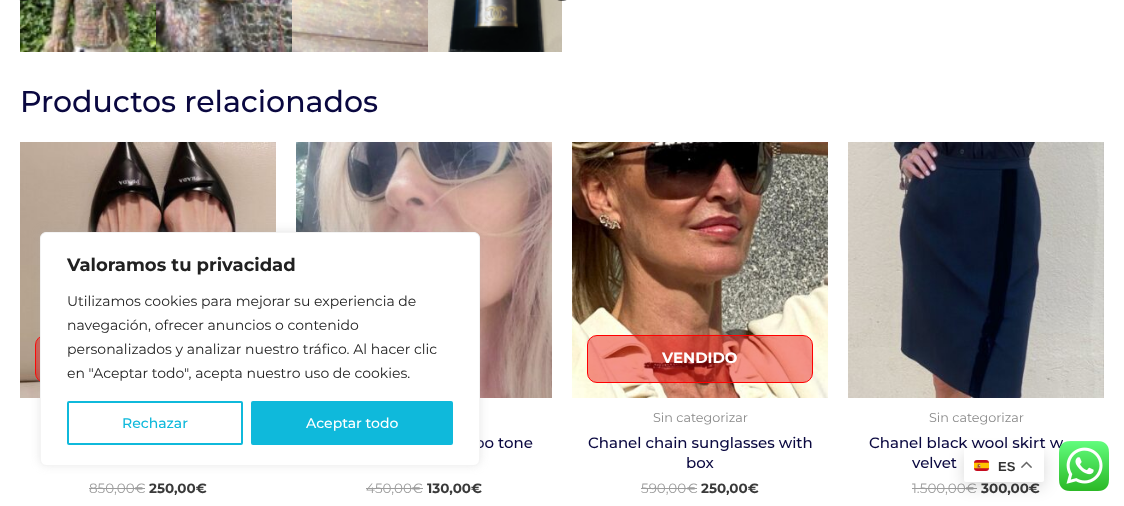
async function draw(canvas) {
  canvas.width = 1124;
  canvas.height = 506;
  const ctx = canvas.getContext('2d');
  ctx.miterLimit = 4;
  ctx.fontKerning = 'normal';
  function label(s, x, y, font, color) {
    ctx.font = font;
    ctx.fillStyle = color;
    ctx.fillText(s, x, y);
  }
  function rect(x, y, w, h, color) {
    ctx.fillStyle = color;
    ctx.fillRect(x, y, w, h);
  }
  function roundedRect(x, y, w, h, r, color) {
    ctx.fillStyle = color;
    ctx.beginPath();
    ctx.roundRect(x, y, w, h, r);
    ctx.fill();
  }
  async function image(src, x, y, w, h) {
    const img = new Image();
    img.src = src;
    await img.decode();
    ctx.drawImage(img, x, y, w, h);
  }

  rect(0, 0, 1124, 506, '#fff');
  await image('assets/img2.png', 20, 0, 136, 52);
  await image('assets/img1.png', 19, 0, 10, 1);
  await image('assets/img3.png', 156, 0, 136, 52);
  await image('assets/img4.png', 292, 0, 136, 52);
  await image('assets/img5.png', 428, 0, 134, 52);
  await image('assets/img6.png', 557, 0, 10, 1);
  label('Productos relacionados', 20, 112, '500 30px Montserrat', '#0a0840');
  await image('assets/img7.png', 20, 142, 256, 256);
  ctx.fillStyle = '#e90a0a70';
  ctx.beginPath();
  ctx.roundRect(35.5, 335.5, 225, 47, 9.5);
  ctx.fill();
  ctx.strokeStyle = '#f00';
  ctx.stroke();
  label('850,00€', 89, 493, '13.5px Montserrat', '#9d9d9d');
  rect(89, 488, 56, 1, '#9d9d9d');
  label('250,00€', 149, 493, 'bold 13.5px Montserrat', '#3a3a3a');
  await image('assets/img8.png', 296, 142, 256, 256);
  label('oo tone', 475, 448, '500 15px Montserrat', '#0a0840');
  label('450,00€', 366, 493, '13.5px Montserrat', '#9d9d9d');
  rect(366, 488, 57, 1, '#9d9d9d');
  label('130,00€', 427, 493, 'bold 13.5px Montserrat', '#3a3a3a');
  await image('assets/img9.png', 572, 142, 256, 256);
  ctx.fillStyle = '#e90a0a70';
  ctx.beginPath();
  ctx.roundRect(587.5, 335.5, 225, 47, 9.5);
  ctx.fill();
  ctx.stroke();
  label('VENDIDO', 662, 363, 'bold 15px Montserrat', '#fff');
  label('Sin categorizar', 653, 422, '12.75px Montserrat', '#898989');
  label('Chanel chain sunglasses with', 588, 448, '500 15px Montserrat', '#0a0840');
  label('box', 686, 468, '500 15px Montserrat', '#0a0840');
  label('590,00', 641, 493, '13.5px Montserrat', '#9d9d9d');
  rect(641, 488, 46, 1, '#9d9d9d');
  label('€', 687, 493, '13.5px Montserrat', '#9d9d9d');
  rect(687, 488, 10, 1, '#9d9d9d');
  label('250,00€', 701, 493, 'bold 13.5px Montserrat', '#3a3a3a');
  await image('assets/img10.png', 848, 142, 256, 256);
  label('Sin categorizar', 929, 422, '12.75px Montserrat', '#898989');
  label('Chanel black wool skirt w', 869, 448, '500 15px Montserrat', '#0a0840');
  label('velvet', 912, 468, '500 15px Montserrat', '#0a0840');
  label('1.500,00€', 912, 493, '13.5px Montserrat', '#9d9d9d');
  rect(912, 488, 65, 1, '#9d9d9d');
  label('300,00€', 981, 493, 'bold 13.5px Montserrat', '#3a3a3a');
  ctx.fillStyle = '#acabab4d';
  ctx.filter = 'blur(5px)';
  ctx.beginPath();
  ctx.roundRect(40, 231, 440, 234, 6);
  ctx.fill();
  ctx.filter = 'none';
  ctx.fillStyle = '#fff';
  ctx.beginPath();
  ctx.roundRect(40.5, 232.5, 439, 233, 5.5);
  ctx.fill();
  ctx.strokeStyle = '#f4f4f4';
  ctx.stroke();
  label('Valoramos tu privacidad', 67, 271, 'bold 18px Montserrat', '#212121');
  label('Utilizamos cookies para mejorar su experiencia de', 67, 306, '14px Montserrat', '#212121');
  label('navegación, ofrecer anuncios o contenido', 67, 330, '14px Montserrat', '#212121');
  label('personalizados y analizar nuestro tráfico. Al hacer clic', 67, 354, '14px Montserrat', '#212121');
  label('en "Aceptar todo", acepta nuestro uso de cookies.', 67, 378, '14px Montserrat', '#212121');
  ctx.beginPath();
  ctx.roundRect(68, 402, 174, 42, 1);
  ctx.strokeStyle = '#0fb9db';
  ctx.lineWidth = 2;
  ctx.stroke();
  label('Rechazar', 122, 428, '500 14px Montserrat', '#0fb9db');
  ctx.beginPath();
  ctx.roundRect(252, 402, 200, 42, 1);
  ctx.fill();
  ctx.stroke();
  label('Aceptar todo', 306, 428, '500 14px Montserrat', '#fff');
  ctx.fillStyle = '#00000026';
  ctx.filter = 'blur(7.5px)';
  ctx.beginPath();
  ctx.roundRect(964, 453, 80, 34, 2);
  ctx.fill();
  ctx.filter = 'none';
  roundedRect(964, 448, 80, 34, 2, '#fff');
  await image('assets/img11.png', 974, 460, 15, 11);
  label('ES', 998, 471, 'bold 13px Liberation Sans', '#333');
  await image('assets/img12.png', 1021, 461, 11, 7);
  await image('assets/img13.png', 1059, 441, 50, 50);
}

draw(document.querySelector('canvas'));
